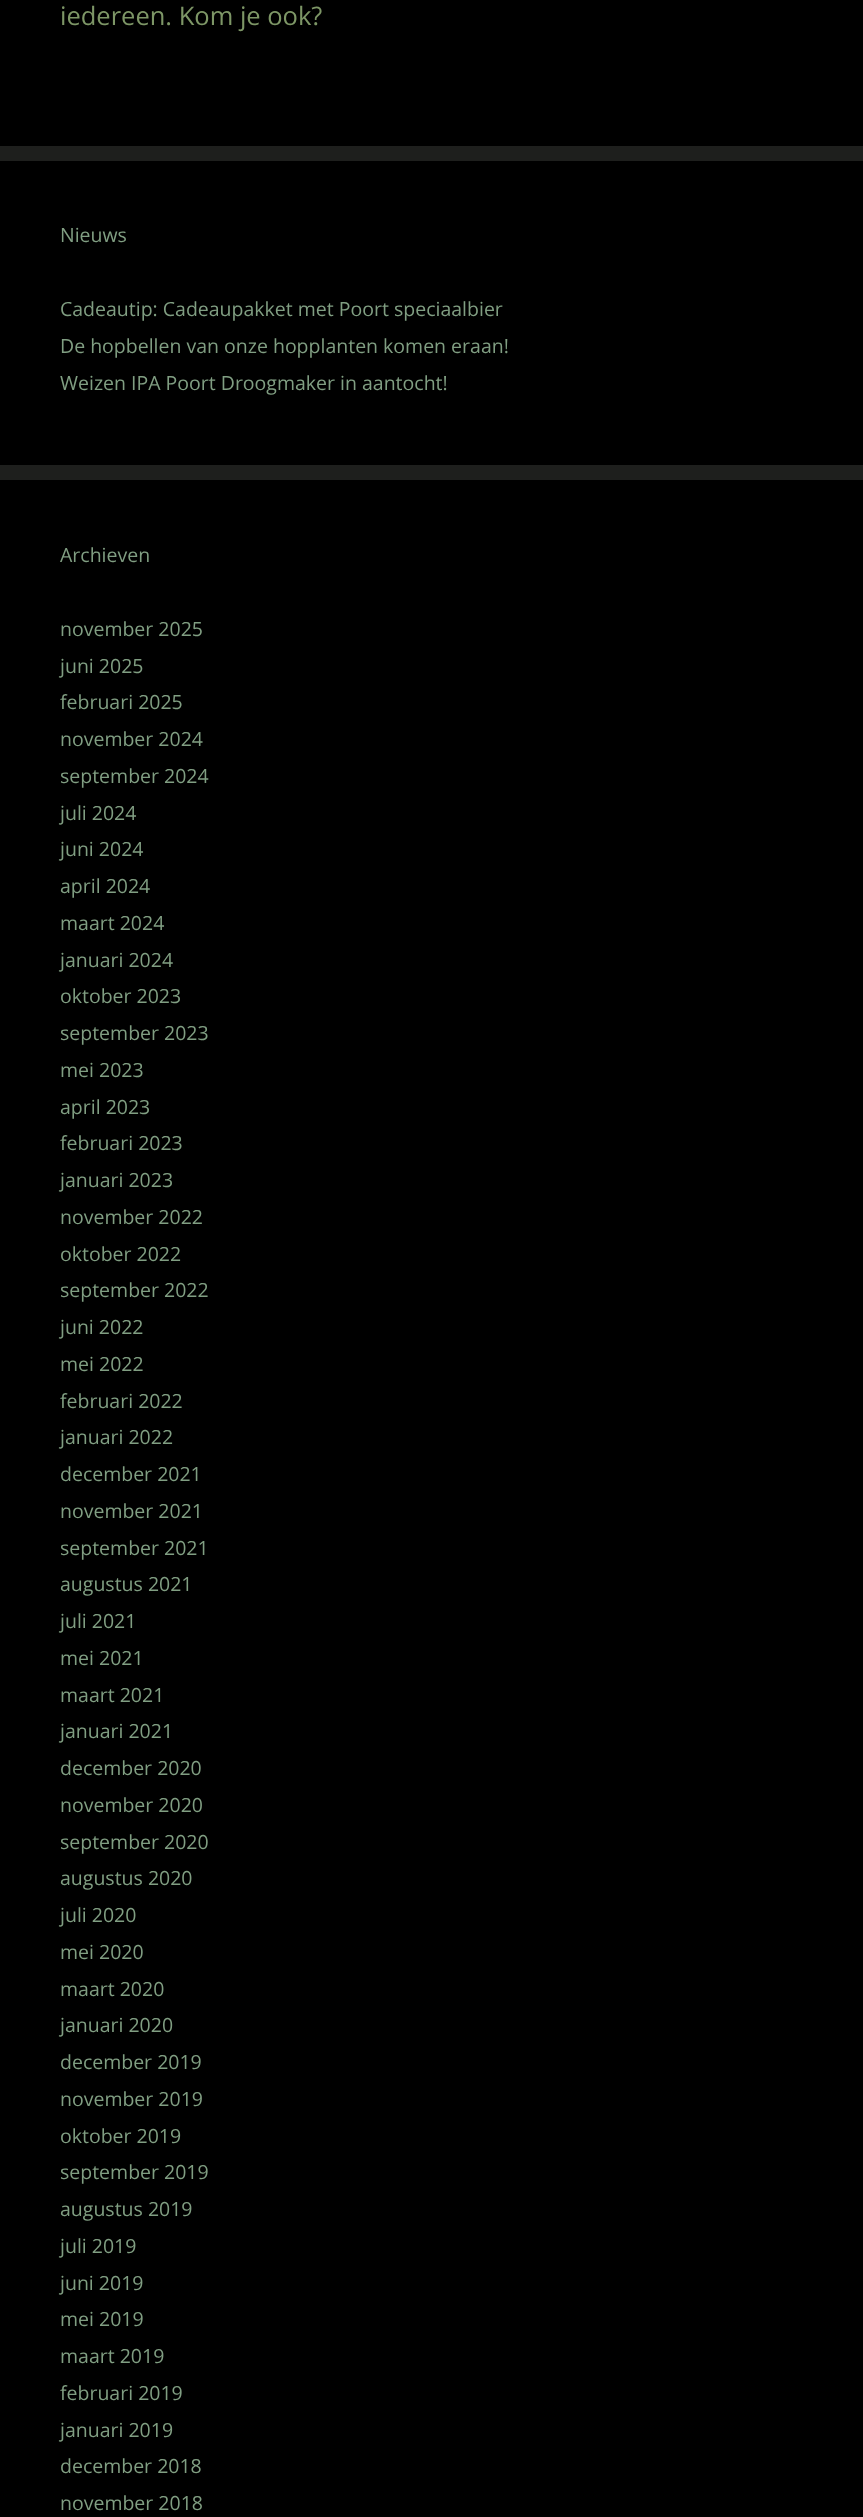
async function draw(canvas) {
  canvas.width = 863;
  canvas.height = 2517;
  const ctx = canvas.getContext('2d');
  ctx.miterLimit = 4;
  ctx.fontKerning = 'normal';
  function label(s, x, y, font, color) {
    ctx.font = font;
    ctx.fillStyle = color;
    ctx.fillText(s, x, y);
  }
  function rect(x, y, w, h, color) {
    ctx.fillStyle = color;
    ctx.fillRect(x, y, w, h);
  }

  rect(0, 0, 863, 2517, '#1e1f1d');
  rect(0, 0, 863, 146, '#000');
  label('iedereen. Kom je ook?', 60, 25, '25.5px Open Sans', '#7d9666');
  rect(0, 161, 863, 304, '#000');
  label('Nieuws', 60, 242, '19.5px Open Sans', '#809e82');
  label('Cadeautip: Cadeaupakket met Poort speciaalbier', 60, 316, '19.5px Open Sans', '#809e82');
  label('De hopbellen van onze hopplanten komen eraan!', 60, 353, '19.5px Open Sans', '#809e82');
  label('Weizen IPA Poort Droogmaker in aantocht!', 60, 390, '19.5px Open Sans', '#809e82');
  rect(0, 480, 863, 2037, '#000');
  label('Archieven', 60, 562, '19.5px Open Sans', '#809e82');
  label('november 2025', 60, 636, '19.5px Open Sans', '#809e82');
  label('juni 2025', 60, 673, '19.5px Open Sans', '#809e82');
  label('februari 2025', 60, 709, '19.5px Open Sans', '#809e82');
  label('november 2024', 60, 746, '19.5px Open Sans', '#809e82');
  label('september 2024', 60, 783, '19.5px Open Sans', '#809e82');
  label('juli 2024', 60, 820, '19.5px Open Sans', '#809e82');
  label('juni 2024', 60, 856, '19.5px Open Sans', '#809e82');
  label('april 2024', 60, 893, '19.5px Open Sans', '#809e82');
  label('maart 2024', 60, 930, '19.5px Open Sans', '#809e82');
  label('januari 2024', 60, 967, '19.5px Open Sans', '#809e82');
  label('oktober 2023', 60, 1003, '19.5px Open Sans', '#809e82');
  label('september 2023', 60, 1040, '19.5px Open Sans', '#809e82');
  label('mei 2023', 60, 1077, '19.5px Open Sans', '#809e82');
  label('april 2023', 60, 1114, '19.5px Open Sans', '#809e82');
  label('februari 2023', 60, 1150, '19.5px Open Sans', '#809e82');
  label('januari 2023', 60, 1187, '19.5px Open Sans', '#809e82');
  label('november 2022', 60, 1224, '19.5px Open Sans', '#809e82');
  label('oktober 2022', 60, 1261, '19.5px Open Sans', '#809e82');
  label('september 2022', 60, 1297, '19.5px Open Sans', '#809e82');
  label('juni 2022', 60, 1334, '19.5px Open Sans', '#809e82');
  label('mei 2022', 60, 1371, '19.5px Open Sans', '#809e82');
  label('februari 2022', 60, 1408, '19.5px Open Sans', '#809e82');
  label('januari 2022', 60, 1444, '19.5px Open Sans', '#809e82');
  label('december 2021', 60, 1481, '19.5px Open Sans', '#809e82');
  label('november 2021', 60, 1518, '19.5px Open Sans', '#809e82');
  label('september 2021', 60, 1555, '19.5px Open Sans', '#809e82');
  label('augustus 2021', 60, 1591, '19.5px Open Sans', '#809e82');
  label('juli 2021', 60, 1628, '19.5px Open Sans', '#809e82');
  label('mei 2021', 60, 1665, '19.5px Open Sans', '#809e82');
  label('maart 2021', 60, 1702, '19.5px Open Sans', '#809e82');
  label('januari 2021', 60, 1738, '19.5px Open Sans', '#809e82');
  label('december 2020', 60, 1775, '19.5px Open Sans', '#809e82');
  label('november 2020', 60, 1812, '19.5px Open Sans', '#809e82');
  label('september 2020', 60, 1849, '19.5px Open Sans', '#809e82');
  label('augustus 2020', 60, 1885, '19.5px Open Sans', '#809e82');
  label('juli 2020', 60, 1922, '19.5px Open Sans', '#809e82');
  label('mei 2020', 60, 1959, '19.5px Open Sans', '#809e82');
  label('maart 2020', 60, 1996, '19.5px Open Sans', '#809e82');
  label('januari 2020', 60, 2032, '19.5px Open Sans', '#809e82');
  label('december 2019', 60, 2069, '19.5px Open Sans', '#809e82');
  label('november 2019', 60, 2106, '19.5px Open Sans', '#809e82');
  label('oktober 2019', 60, 2143, '19.5px Open Sans', '#809e82');
  label('september 2019', 60, 2179, '19.5px Open Sans', '#809e82');
  label('augustus 2019', 60, 2216, '19.5px Open Sans', '#809e82');
  label('juli 2019', 60, 2253, '19.5px Open Sans', '#809e82');
  label('juni 2019', 60, 2290, '19.5px Open Sans', '#809e82');
  label('mei 2019', 60, 2326, '19.5px Open Sans', '#809e82');
  label('maart 2019', 60, 2363, '19.5px Open Sans', '#809e82');
  label('februari 2019', 60, 2400, '19.5px Open Sans', '#809e82');
  label('januari 2019', 60, 2437, '19.5px Open Sans', '#809e82');
  label('december 2018', 60, 2473, '19.5px Open Sans', '#809e82');
  label('november 2018', 60, 2510, '19.5px Open Sans', '#809e82');
}

draw(document.querySelector('canvas'));
